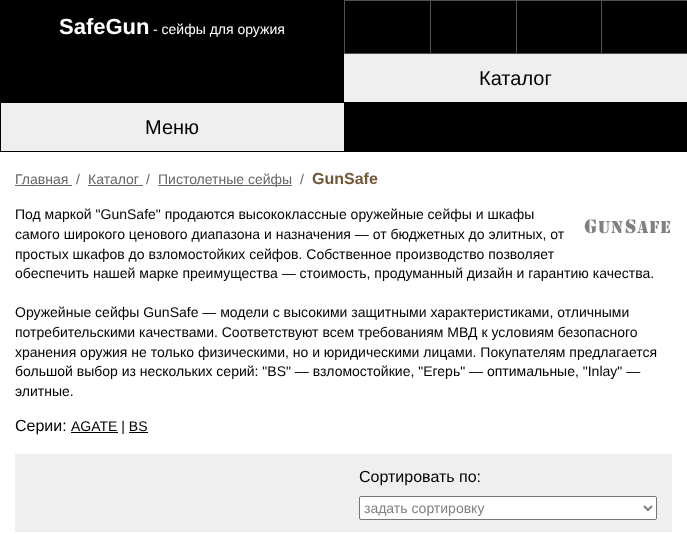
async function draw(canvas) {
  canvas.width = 687;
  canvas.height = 534;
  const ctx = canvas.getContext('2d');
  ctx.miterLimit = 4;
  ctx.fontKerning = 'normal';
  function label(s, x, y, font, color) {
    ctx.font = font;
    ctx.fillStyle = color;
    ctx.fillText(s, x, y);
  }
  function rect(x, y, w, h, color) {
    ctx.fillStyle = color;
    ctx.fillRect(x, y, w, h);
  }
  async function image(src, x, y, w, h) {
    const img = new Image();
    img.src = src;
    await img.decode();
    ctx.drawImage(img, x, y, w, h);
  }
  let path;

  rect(0, 0, 687, 534, '#fff');
  rect(0, 0, 687, 152, '#000');
  label('SafeGun', 59, 34, 'bold 22px Liberation Sans', '#fff');
  label('- сейфы для оружия', 153, 34, '14px Liberation Sans', '#fff');
  rect(344, 0, 343, 1, '#525252');
  rect(344, 53, 343, 1, '#525252');
  rect(344, 0, 1, 54, '#525252');
  rect(430, 1, 1, 52, '#525252');
  rect(516, 1, 1, 52, '#525252');
  rect(601, 1, 1, 52, '#525252');
  rect(344, 54, 343, 48, '#efefef');
  label('Каталог', 479, 85, '20px Liberation Sans', '#000');
  rect(1, 103, 343, 48, '#efefef');
  label('Меню', 145, 134, '20px Liberation Sans', '#000');
  label('Главная', 15, 184, '14px Liberation Sans', '#666');
  rect(15, 185, 57, 1, '#666');
  label('/', 76, 184, '14px Liberation Sans', '#666');
  label('Каталог', 88, 184, '14px Liberation Sans', '#666');
  rect(88, 185, 55, 1, '#666');
  label('/', 146, 184, '14px Liberation Sans', '#666');
  rect(158, 185, 134, 1, '#666');
  label('Пистолетные сейфы', 158, 184, '14px Liberation Sans', '#666');
  label('/', 300, 184, '14px Liberation Sans', '#666');
  label('GunSafe', 312, 184, 'bold 16px Liberation Sans', '#725837');
  label('Под маркой "GunSafe" продаются высококлассные оружейные сейфы и шкафы', 15, 219, '14px Liberation Sans', '#000');
  label('самого широкого ценового диапазона и назначения — от бюджетных до элитных, от', 15, 239, '14px Liberation Sans', '#000');
  await image('assets/img1.png', 584, 219, 86, 15);
  label('простых шкафов до взломостойких сейфов. Собственное производство позволяет', 15, 259, '14px Liberation Sans', '#000');
  label('обеспечить нашей марке преимущества — стоимость, продуманный дизайн и гарантию качества.', 15, 278, '14px Liberation Sans', '#000');
  label('Оружейные сейфы GunSafe — модели с высокими защитными характеристиками, отличными', 15, 317, '14px Liberation Sans', '#000');
  label('потребительскими качествами. Соответствуют всем требованиям МВД к условиям безопасного', 15, 337, '14px Liberation Sans', '#000');
  label('хранения оружия не только физическими, но и юридическими лицами. Покупателям предлагается', 15, 357, '14px Liberation Sans', '#000');
  label('большой выбор из нескольких серий: "BS" — взломостойкие, "Егерь" — оптимальные, "Inlay" —', 15, 376, '14px Liberation Sans', '#000');
  label('элитные.', 15, 396, '14px Liberation Sans', '#000');
  label('Серии:', 15, 431, '16px Liberation Sans', '#000');
  rect(71, 432, 47, 1, '#000');
  label('AGATE | BS', 71, 431, '14px Liberation Sans', '#000');
  rect(129, 432, 19, 1, '#000');
  rect(15, 454, 657, 78, '#efefef');
  label('Сортировать по:', 359, 482, '16px Liberation Sans', '#000');
  ctx.fillStyle = '#fff';
  ctx.beginPath();
  ctx.roundRect(359.5, 496.5, 297, 23, 1.5);
  ctx.fill();
  ctx.strokeStyle = '#767676';
  ctx.stroke();
  path = new Path2D('M644 506L648 510L652 506');
  ctx.strokeStyle = '#808080';
  ctx.lineWidth = 2;
  ctx.stroke(path);
  label('задать сортировку', 364, 513, '14px Liberation Sans', '#808080');
}

draw(document.querySelector('canvas'));
